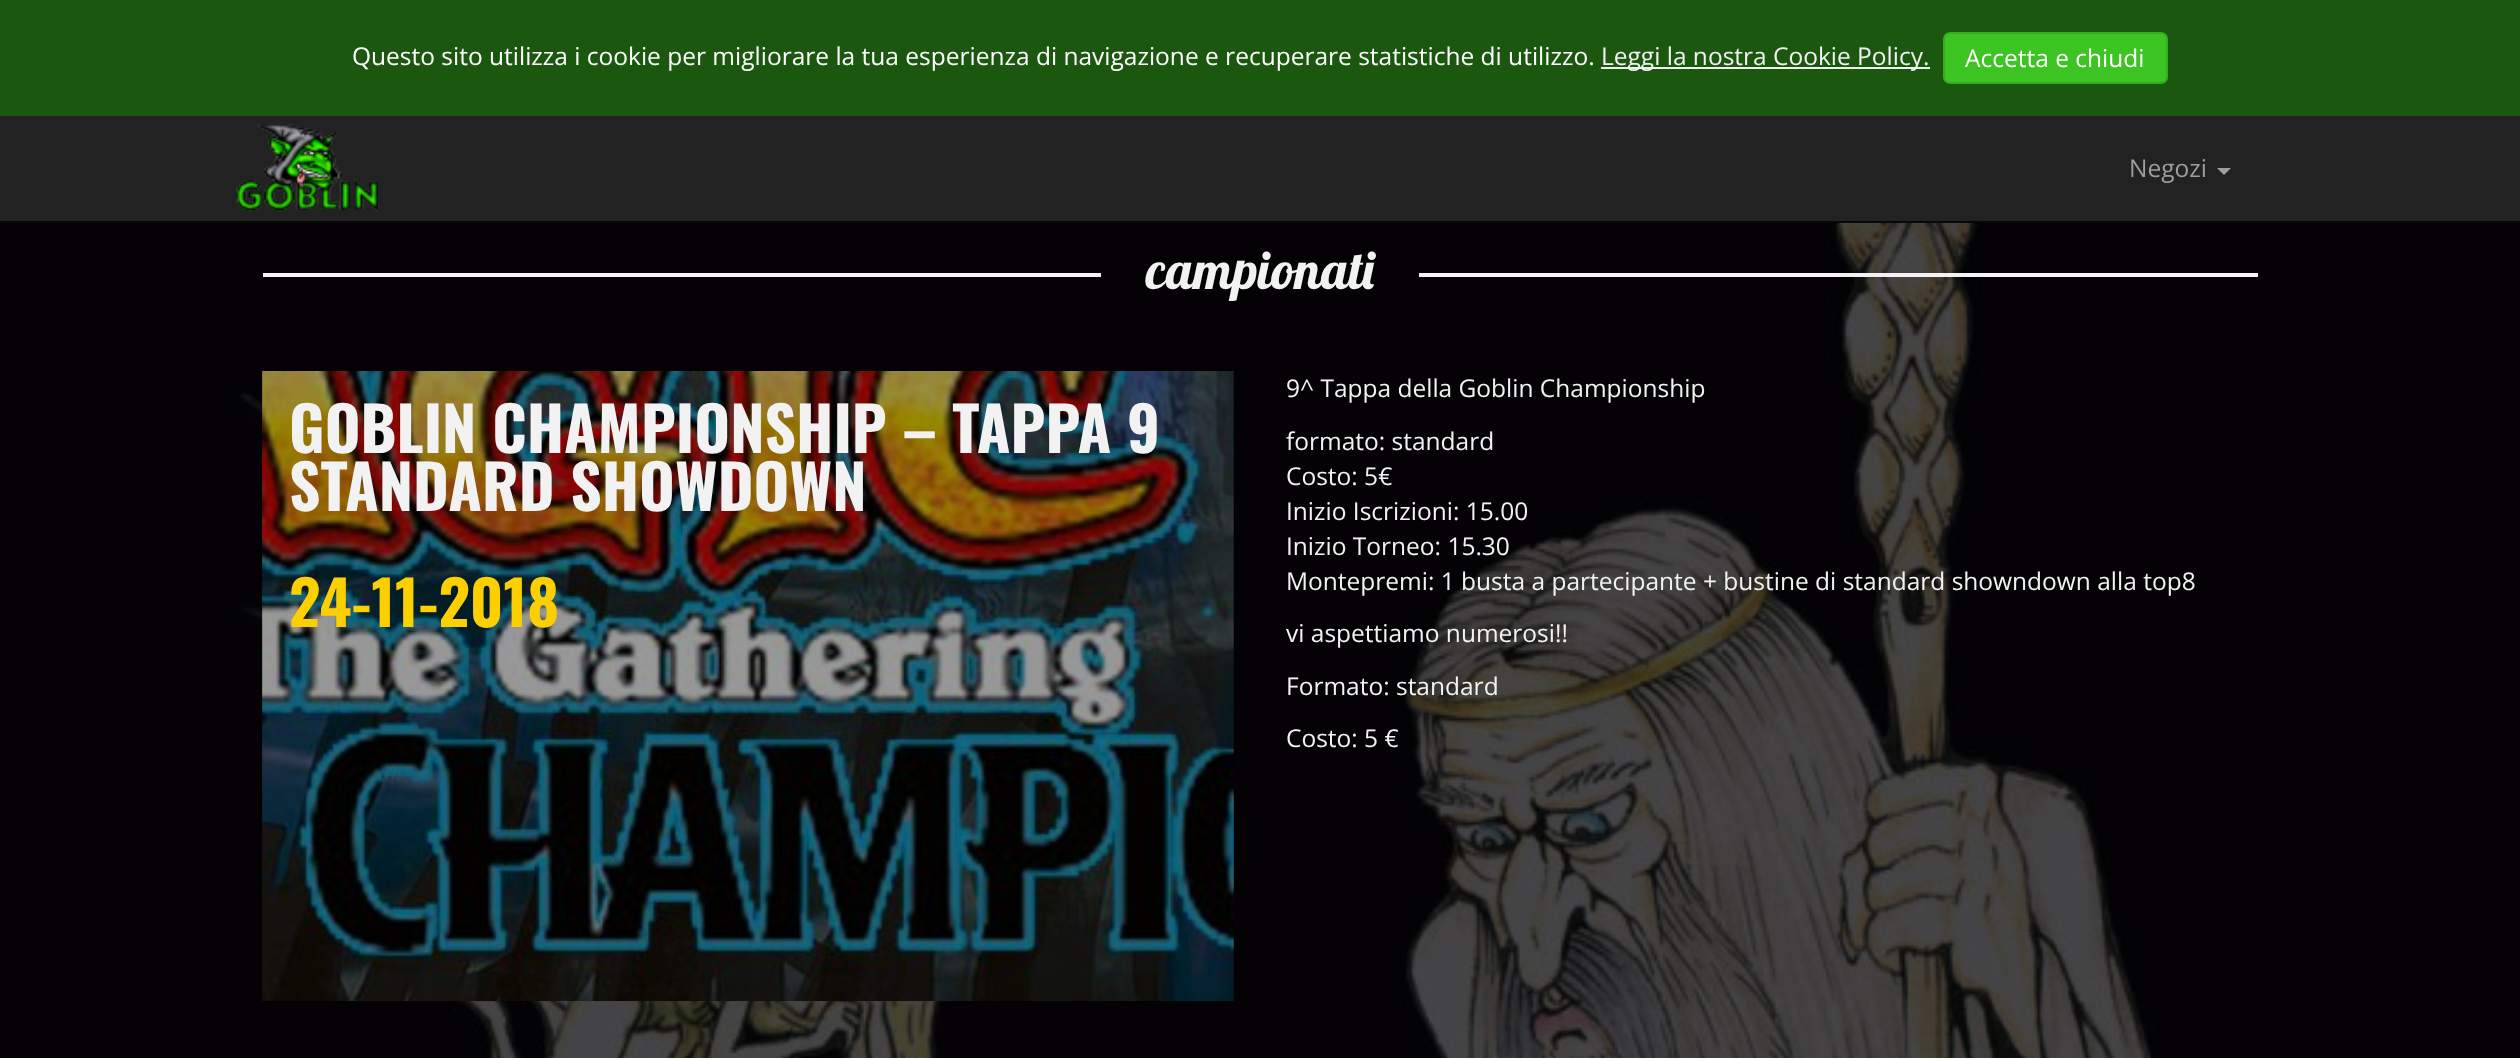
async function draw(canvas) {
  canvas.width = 2520;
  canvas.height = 1058;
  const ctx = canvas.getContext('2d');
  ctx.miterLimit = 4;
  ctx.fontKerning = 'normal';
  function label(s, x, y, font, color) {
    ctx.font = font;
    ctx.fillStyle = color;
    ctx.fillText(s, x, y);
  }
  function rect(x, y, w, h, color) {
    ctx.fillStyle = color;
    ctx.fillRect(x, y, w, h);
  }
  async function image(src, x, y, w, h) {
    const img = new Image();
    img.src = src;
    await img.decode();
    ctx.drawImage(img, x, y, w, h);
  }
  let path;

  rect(0, 0, 2520, 1058, '#fff');
  rect(0, 116, 2520, 105, '#222');
  rect(0, 221, 2520, 2, '#080808');
  rect(0, 0, 2520, 116, '#1b570f');
  label('Questo sito utilizza i cookie per migliorare la tua esperienza di navigazione e recuperare statistiche di utilizzo.', 352, 65, '24.5px Open Sans', '#fff');
  rect(1601, 67, 329, 2, '#f2f2f2');
  label('Leggi la nostra Cookie Policy.', 1601, 65, '24.5px Open Sans', '#f2f2f2');
  ctx.fillStyle = '#3cc422';
  ctx.beginPath();
  ctx.roundRect(1944, 33, 223, 50, 6);
  ctx.fill();
  ctx.strokeStyle = '#35ae1e';
  ctx.lineWidth = 2;
  ctx.stroke();
  label('Accetta e chiudi', 1965, 67, '24.5px Open Sans', '#fff');
  await image('assets/img1.png', 236, 124, 142, 88);
  label('Negozi', 2129, 177, '24.5px Open Sans', '#9d9d9d');
  path = new Path2D('M2217 168H2231L2224 175Z');
  ctx.fill(path);
  await image('assets/img2.png', 0, 223, 2520, 835);
  rect(263, 273, 838, 4, '#f2f2f2');
  ctx.save();
  ctx.beginPath();
  ctx.rect(263, 123, 1995, 178);
  ctx.clip();
  label('campionati', 1146, 289, '52.5px Lobster', '#f2f2f2');
  ctx.restore();
  rect(1419, 273, 839, 4, '#f2f2f2');
  await image('assets/img3.png', 262, 371, 972, 630);
  rect(263, 371, 971, 630, '#00000066');
  label('GOBLIN CHAMPIONSHIP – TAPPA 9', 289, 453, 'bold 61.25px Oswald', '#f2f2f2');
  label('STANDARD SHOWDOWN', 289, 511, 'bold 61.25px Oswald', '#f2f2f2');
  label('24-11-2018', 289, 627, 'bold 61.25px Oswald', '#fcd000');
  label('9^ Tappa della Goblin Championship', 1286, 397, '24.5px Open Sans', '#f2f2f2');
  label('formato: standard', 1286, 450, '24.5px Open Sans', '#f2f2f2');
  label('Costo: 5€', 1286, 485, '24.5px Open Sans', '#f2f2f2');
  label('Inizio Iscrizioni: 15.00', 1286, 520, '24.5px Open Sans', '#f2f2f2');
  label('Inizio Torneo: 15.30', 1286, 555, '24.5px Open Sans', '#f2f2f2');
  label('Montepremi: 1 busta a partecipante + bustine di standard showndown alla top8', 1286, 590, '24.5px Open Sans', '#f2f2f2');
  label('vi aspettiamo numerosi!!', 1286, 642, '24.5px Open Sans', '#f2f2f2');
  label('Formato: standard', 1286, 695, '24.5px Open Sans', '#f2f2f2');
  label('Costo: 5 €', 1286, 747, '24.5px Open Sans', '#f2f2f2');
}

draw(document.querySelector('canvas'));
